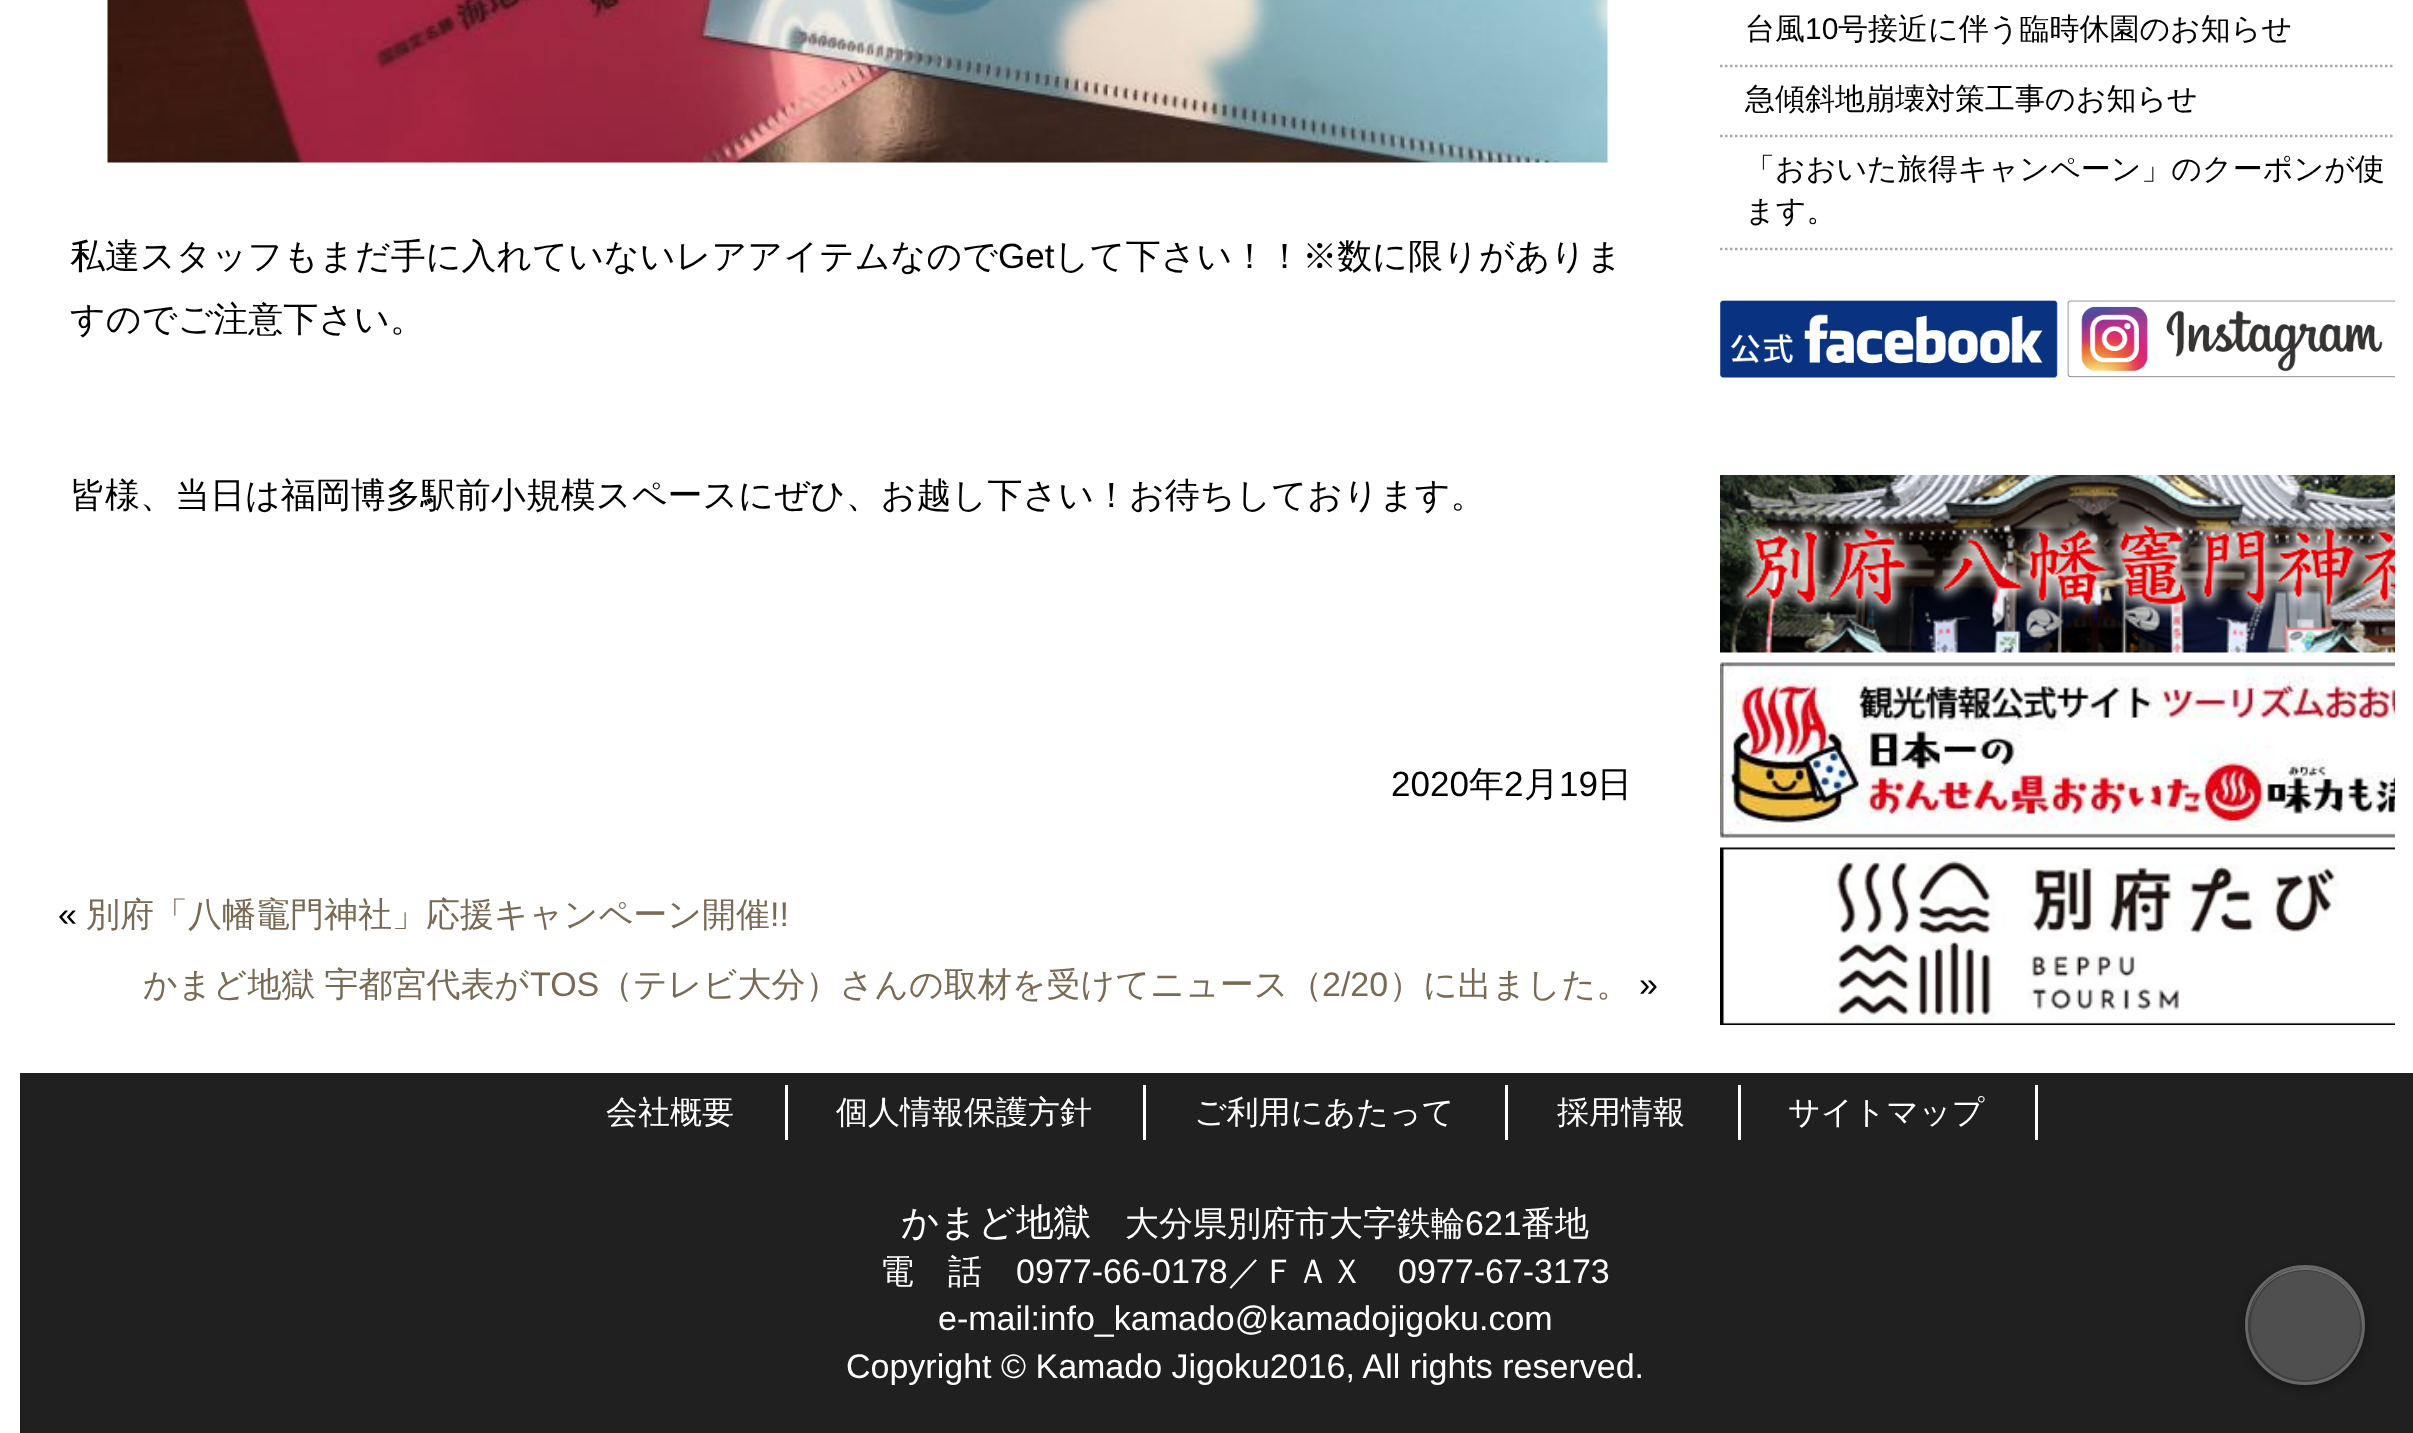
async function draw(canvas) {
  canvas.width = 2413;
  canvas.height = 1433;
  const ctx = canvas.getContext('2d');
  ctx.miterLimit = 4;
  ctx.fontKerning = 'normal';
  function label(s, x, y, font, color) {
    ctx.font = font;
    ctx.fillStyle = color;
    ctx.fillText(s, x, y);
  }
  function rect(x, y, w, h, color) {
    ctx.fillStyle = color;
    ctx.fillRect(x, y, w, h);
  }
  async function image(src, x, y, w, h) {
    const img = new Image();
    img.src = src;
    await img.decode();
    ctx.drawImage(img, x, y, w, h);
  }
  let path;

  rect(0, 0, 2413, 1433, '#fff');
  ctx.save();
  ctx.beginPath();
  ctx.rect(20, 0, 2375, 1035);
  ctx.clip();
  path = new Path2D('M1720 66H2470');
  ctx.strokeStyle = '#aaa';
  ctx.lineWidth = 2.5;
  ctx.setLineDash([2.5, 2.5]);
  ctx.stroke(path);
  ctx.restore();
  label('台風', 1745, 39, '500 30px WenQuanYi Zen Hei', '#000');
  label('10', 1805, 39, '30px Liberation Sans', '#000');
  label('号接近に伴う臨時休園のお知らせ', 1838, 39, '500 30px WenQuanYi Zen Hei', '#000');
  ctx.save();
  ctx.beginPath();
  ctx.rect(20, 0, 2375, 1035);
  ctx.clip();
  path = new Path2D('M1720 136H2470');
  ctx.strokeStyle = '#aaa';
  ctx.lineWidth = 2.5;
  ctx.setLineDash([2.5, 2.5]);
  ctx.stroke(path);
  ctx.restore();
  label('急傾斜地崩壊対策工事のお知らせ', 1745, 109, '500 30px WenQuanYi Zen Hei', '#000');
  ctx.save();
  ctx.beginPath();
  ctx.rect(20, 0, 2375, 1035);
  ctx.clip();
  path = new Path2D('M1720 249H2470');
  ctx.strokeStyle = '#aaa';
  ctx.lineWidth = 2.5;
  ctx.setLineDash([2.5, 2.5]);
  ctx.stroke(path);
  ctx.restore();
  label('「おおいた旅得キャンペーン」のクーポンが使', 1745, 179, '500 30px WenQuanYi Zen Hei', '#000');
  label('ます。', 1745, 221, '500 30px WenQuanYi Zen Hei', '#000');
  await image('assets/img1.png', 1720, 300, 338, 78);
  await image('assets/img2.png', 2067, 300, 328, 78);
  await image('assets/img3.png', 1720, 475, 675, 178);
  await image('assets/img4.png', 1720, 662, 675, 176);
  await image('assets/img5.png', 1720, 847, 675, 178);
  await image('assets/img6.png', 107, 0, 1501, 163);
  label('私達スタッフもまだ手に入れていないレアアイテムなので', 70, 268, '500 35px WenQuanYi Zen Hei', '#000');
  label('Get', 998, 268, '35px Liberation Sans', '#000');
  label('して下さい！！※数に限りがありま', 1054, 268, '500 35px WenQuanYi Zen Hei', '#000');
  label('すのでご注意下さい。', 70, 331, '500 35px WenQuanYi Zen Hei', '#000');
  label('皆様、当日は福岡博多駅前小規模スペースにぜひ、お越し下さい！お待ちしております。', 70, 507, '500 35px WenQuanYi Zen Hei', '#000');
  label('2020', 1391, 796, '35px Liberation Sans', '#000');
  label('年', 1469, 796, '500 35px WenQuanYi Zen Hei', '#000');
  label('2', 1504, 796, '35px Liberation Sans', '#000');
  label('月', 1524, 796, '500 35px WenQuanYi Zen Hei', '#000');
  label('19', 1559, 796, '35px Liberation Sans', '#000');
  label('日', 1597, 796, '500 35px WenQuanYi Zen Hei', '#000');
  label('«', 58, 926, '34px Liberation Sans', '#000');
  label('別府「八幡竈門神社」応援キャンペーン開催', 86, 926, '500 34px WenQuanYi Zen Hei', '#796a55');
  label('!!', 770, 926, '34px Liberation Sans', '#796a55');
  ctx.wordSpacing = '-1px';
  label('かまど地獄 宇都宮代表が', 143, 996, '500 34px WenQuanYi Zen Hei', '#796a55');
  ctx.wordSpacing = '0px';
  label('TOS', 530, 996, '34px Liberation Sans', '#796a55');
  label('（テレビ大分）さんの取材を受けてニュース（', 599, 996, '500 34px WenQuanYi Zen Hei', '#796a55');
  label('2/20', 1322, 996, '34px Liberation Sans', '#796a55');
  label('）に出ました。', 1389, 996, '500 34px WenQuanYi Zen Hei', '#796a55');
  label('»', 1639, 996, '34px Liberation Sans', '#000');
  rect(20, 1073, 2393, 360, '#202020');
  rect(785, 1085, 3, 55, '#fff');
  label('会社概要', 606, 1123, '500 32px WenQuanYi Zen Hei', '#fff');
  rect(1143, 1085, 3, 55, '#fff');
  label('個人情報保護方針', 836, 1123, '500 32px WenQuanYi Zen Hei', '#fff');
  rect(1505, 1085, 3, 55, '#fff');
  label('ご利用にあたって', 1194, 1123, '500 32px WenQuanYi Zen Hei', '#fff');
  rect(1738, 1085, 3, 55, '#fff');
  label('採用情報', 1557, 1123, '500 32px WenQuanYi Zen Hei', '#fff');
  rect(2035, 1085, 3, 55, '#fff');
  label('サイトマップ', 1788, 1123, '500 32px WenQuanYi Zen Hei', '#fff');
  label('かまど地獄', 901, 1235, '500 37.5px WenQuanYi Zen Hei', '#fff');
  label('大分県別府市大字鉄輪', 1125, 1235, '500 34px WenQuanYi Zen Hei', '#fff');
  label('621', 1465, 1235, '34px Liberation Sans', '#fff');
  label('番地', 1521, 1235, '500 34px WenQuanYi Zen Hei', '#fff');
  label('電　話', 880, 1283, '500 34px WenQuanYi Zen Hei', '#fff');
  label('0977-66-0178', 1016, 1283, '34px Liberation Sans', '#fff');
  label('／ＦＡＸ', 1228, 1283, '500 34px WenQuanYi Zen Hei', '#fff');
  label('0977-67-3173', 1398, 1283, '34px Liberation Sans', '#fff');
  label('e-mail:info_kamado@kamadojigoku.com', 938, 1330, '34px Liberation Sans', '#fff');
  label('Copyright © Kamado Jigoku2016, All rights reserved.', 846, 1378, '34px Liberation Sans', '#fff');
  ctx.fillStyle = '#04040466';
  ctx.filter = 'blur(4px)';
  ctx.beginPath();
  ctx.roundRect(2245, 1268, 120, 120, 60);
  ctx.fill();
  ctx.filter = 'none';
  ctx.fillStyle = '#4f4f4f';
  ctx.beginPath();
  ctx.arc(2305.5, 1325.5, 57.5, 0, 2 * Math.PI);
  ctx.fill();
  ctx.fillStyle = '#e2e2e266';
  path = new Path2D('M2305 1270C2346 1270 2373 1312 2358 1349C2377 1307 2340 1260 2294 1269C2283 1271 2273 1277 2265 1285C2254 1296 2248 1311 2248 1327C2249 1295 2273 1270 2305 1270Z');
  ctx.fill(path);
  ctx.beginPath();
  ctx.arc(2305.5, 1325.5, 56, 0, 2 * Math.PI);
  ctx.strokeStyle = '#04040433';
  ctx.lineWidth = 3;
  ctx.stroke();
  ctx.beginPath();
  ctx.arc(2305, 1325, 58.5, 0, 2 * Math.PI);
  ctx.strokeStyle = '#676767';
  ctx.stroke();
}

draw(document.querySelector('canvas'));
